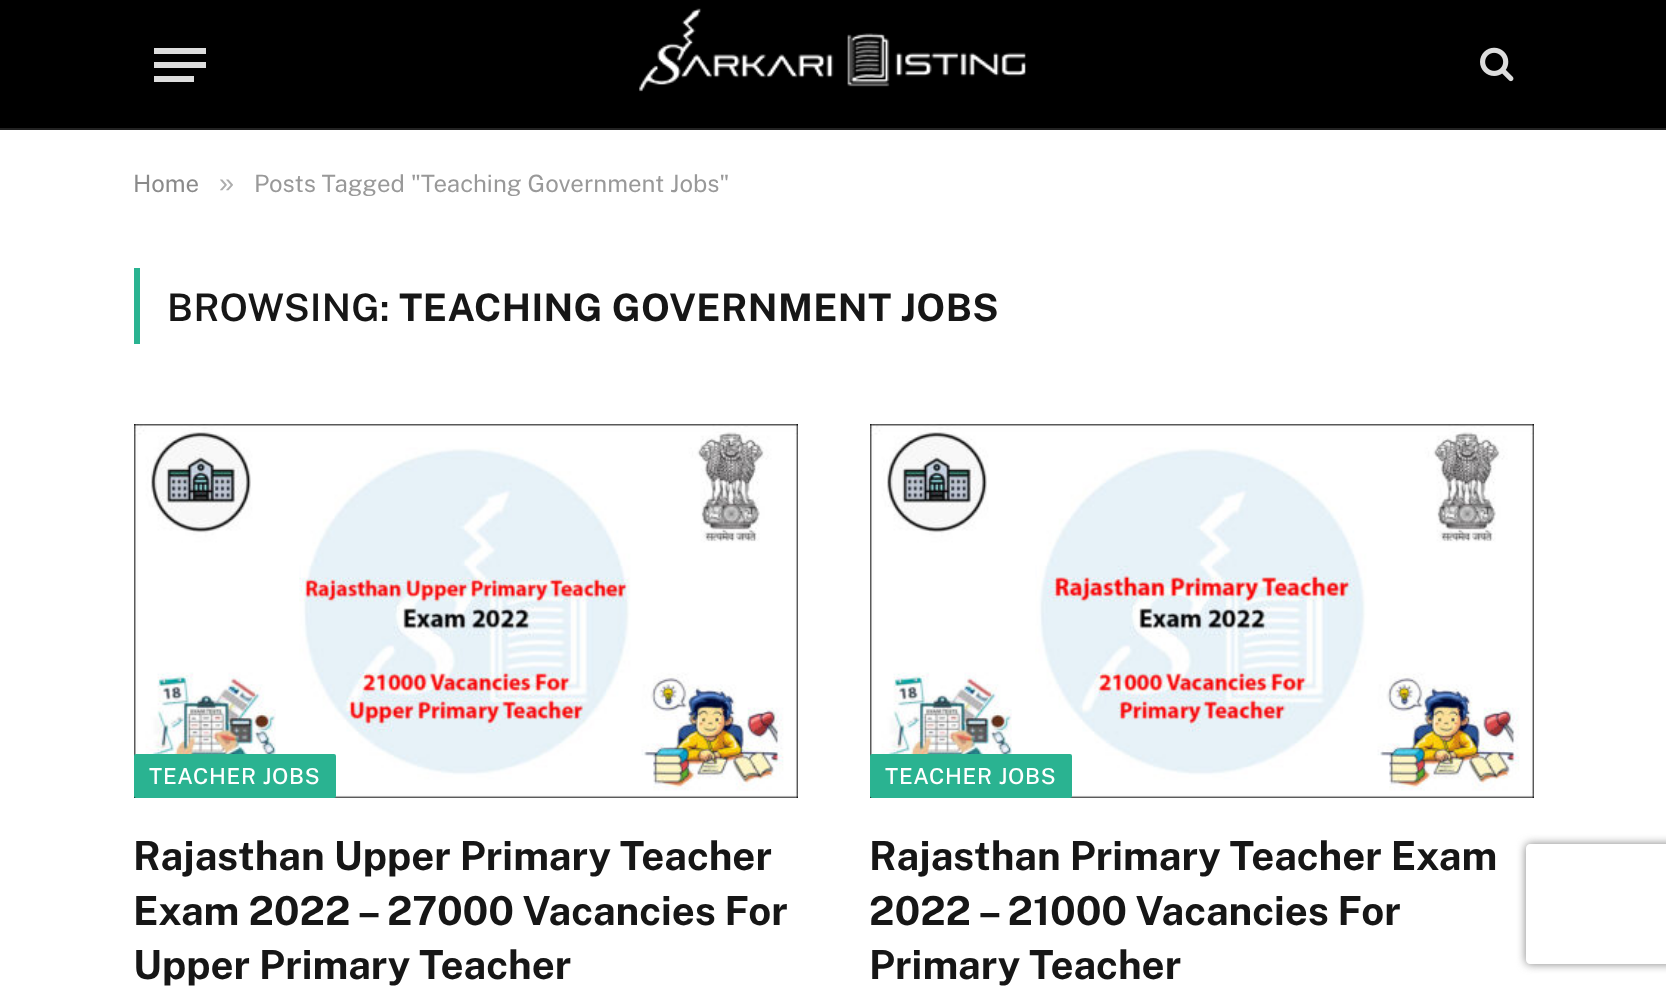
async function draw(canvas) {
  canvas.width = 1666;
  canvas.height = 992;
  const ctx = canvas.getContext('2d');
  ctx.miterLimit = 4;
  ctx.fontKerning = 'normal';
  function label(s, x, y, font, color) {
    ctx.font = font;
    ctx.fillStyle = color;
    ctx.fillText(s, x, y);
  }
  function rect(x, y, w, h, color) {
    ctx.fillStyle = color;
    ctx.fillRect(x, y, w, h);
  }
  function roundedRect(x, y, w, h, r, color) {
    ctx.fillStyle = color;
    ctx.beginPath();
    ctx.roundRect(x, y, w, h, r);
    ctx.fill();
  }
  async function image(src, x, y, w, h) {
    const img = new Image();
    img.src = src;
    await img.decode();
    ctx.drawImage(img, x, y, w, h);
  }
  let path;

  rect(0, 0, 1666, 992, '#fff');
  rect(0, 0, 1666, 128, '#000');
  rect(0, 128, 1666, 2, '#222');
  rect(154, 76, 40, 6, '#ddd');
  rect(154, 48, 52, 6, '#ddd');
  rect(154, 62, 52, 6, '#ddd');
  await image('assets/img1.png', 639, 8, 387, 84);
  await image('assets/img2.png', 1480, 47, 34, 35);
  label('Home', 133, 192, '24px Public Sans', '#8a8a8a');
  label('»', 219, 192, '27px Liberation Sans', '#adadad');
  label('Posts Tagged "Teaching Government Jobs"', 254, 192, '24px Public Sans', '#999');
  rect(134, 268, 6, 76, '#2ab391');
  ctx.letterSpacing = '0.4px';
  label('BROWSING:', 167, 321, '600 38px Public Sans', '#161616');
  label('TEACHING GOVERNMENT JOBS', 399, 321, 'bold 38px Public Sans', '#161616');
  await image('assets/img3.png', 134, 424, 664, 374);
  roundedRect(134, 754, 202, 44, 2, '#2ab391');
  ctx.letterSpacing = '0.7px';
  label('TEACHER JOBS', 149, 784, '500 22px Public Sans', '#fff');
  ctx.letterSpacing = '0px';
  label('Rajasthan Upper Primary Teacher', 133, 870, 'bold 40px Public Sans', '#161616');
  label('Exam 2022 – 27000 Vacancies For', 133, 925, 'bold 40px Public Sans', '#161616');
  label('Upper Primary Teacher', 133, 979, 'bold 40px Public Sans', '#161616');
  await image('assets/img4.png', 870, 424, 664, 374);
  roundedRect(870, 754, 202, 44, 2, '#2ab391');
  ctx.letterSpacing = '0.7px';
  label('TEACHER JOBS', 885, 784, '500 22px Public Sans', '#fff');
  ctx.letterSpacing = '0px';
  label('Rajasthan Primary Teacher Exam', 869, 870, 'bold 40px Public Sans', '#161616');
  label('2022 – 21000 Vacancies For', 869, 925, 'bold 40px Public Sans', '#161616');
  label('Primary Teacher', 869, 979, 'bold 40px Public Sans', '#161616');
  ctx.save();
  path = new Path2D('M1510 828H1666V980H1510ZM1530 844H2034C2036 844 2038 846 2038 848V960C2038 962 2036 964 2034 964H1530C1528 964 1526 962 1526 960V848C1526 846 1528 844 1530 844Z');
  ctx.clip(path, 'evenodd');
  ctx.fillStyle = '#808080';
  ctx.filter = 'blur(5px)';
  ctx.beginPath();
  ctx.roundRect(1526, 844, 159, 120, 4);
  ctx.fill();
  ctx.filter = 'none';
  ctx.restore();
}

draw(document.querySelector('canvas'));
